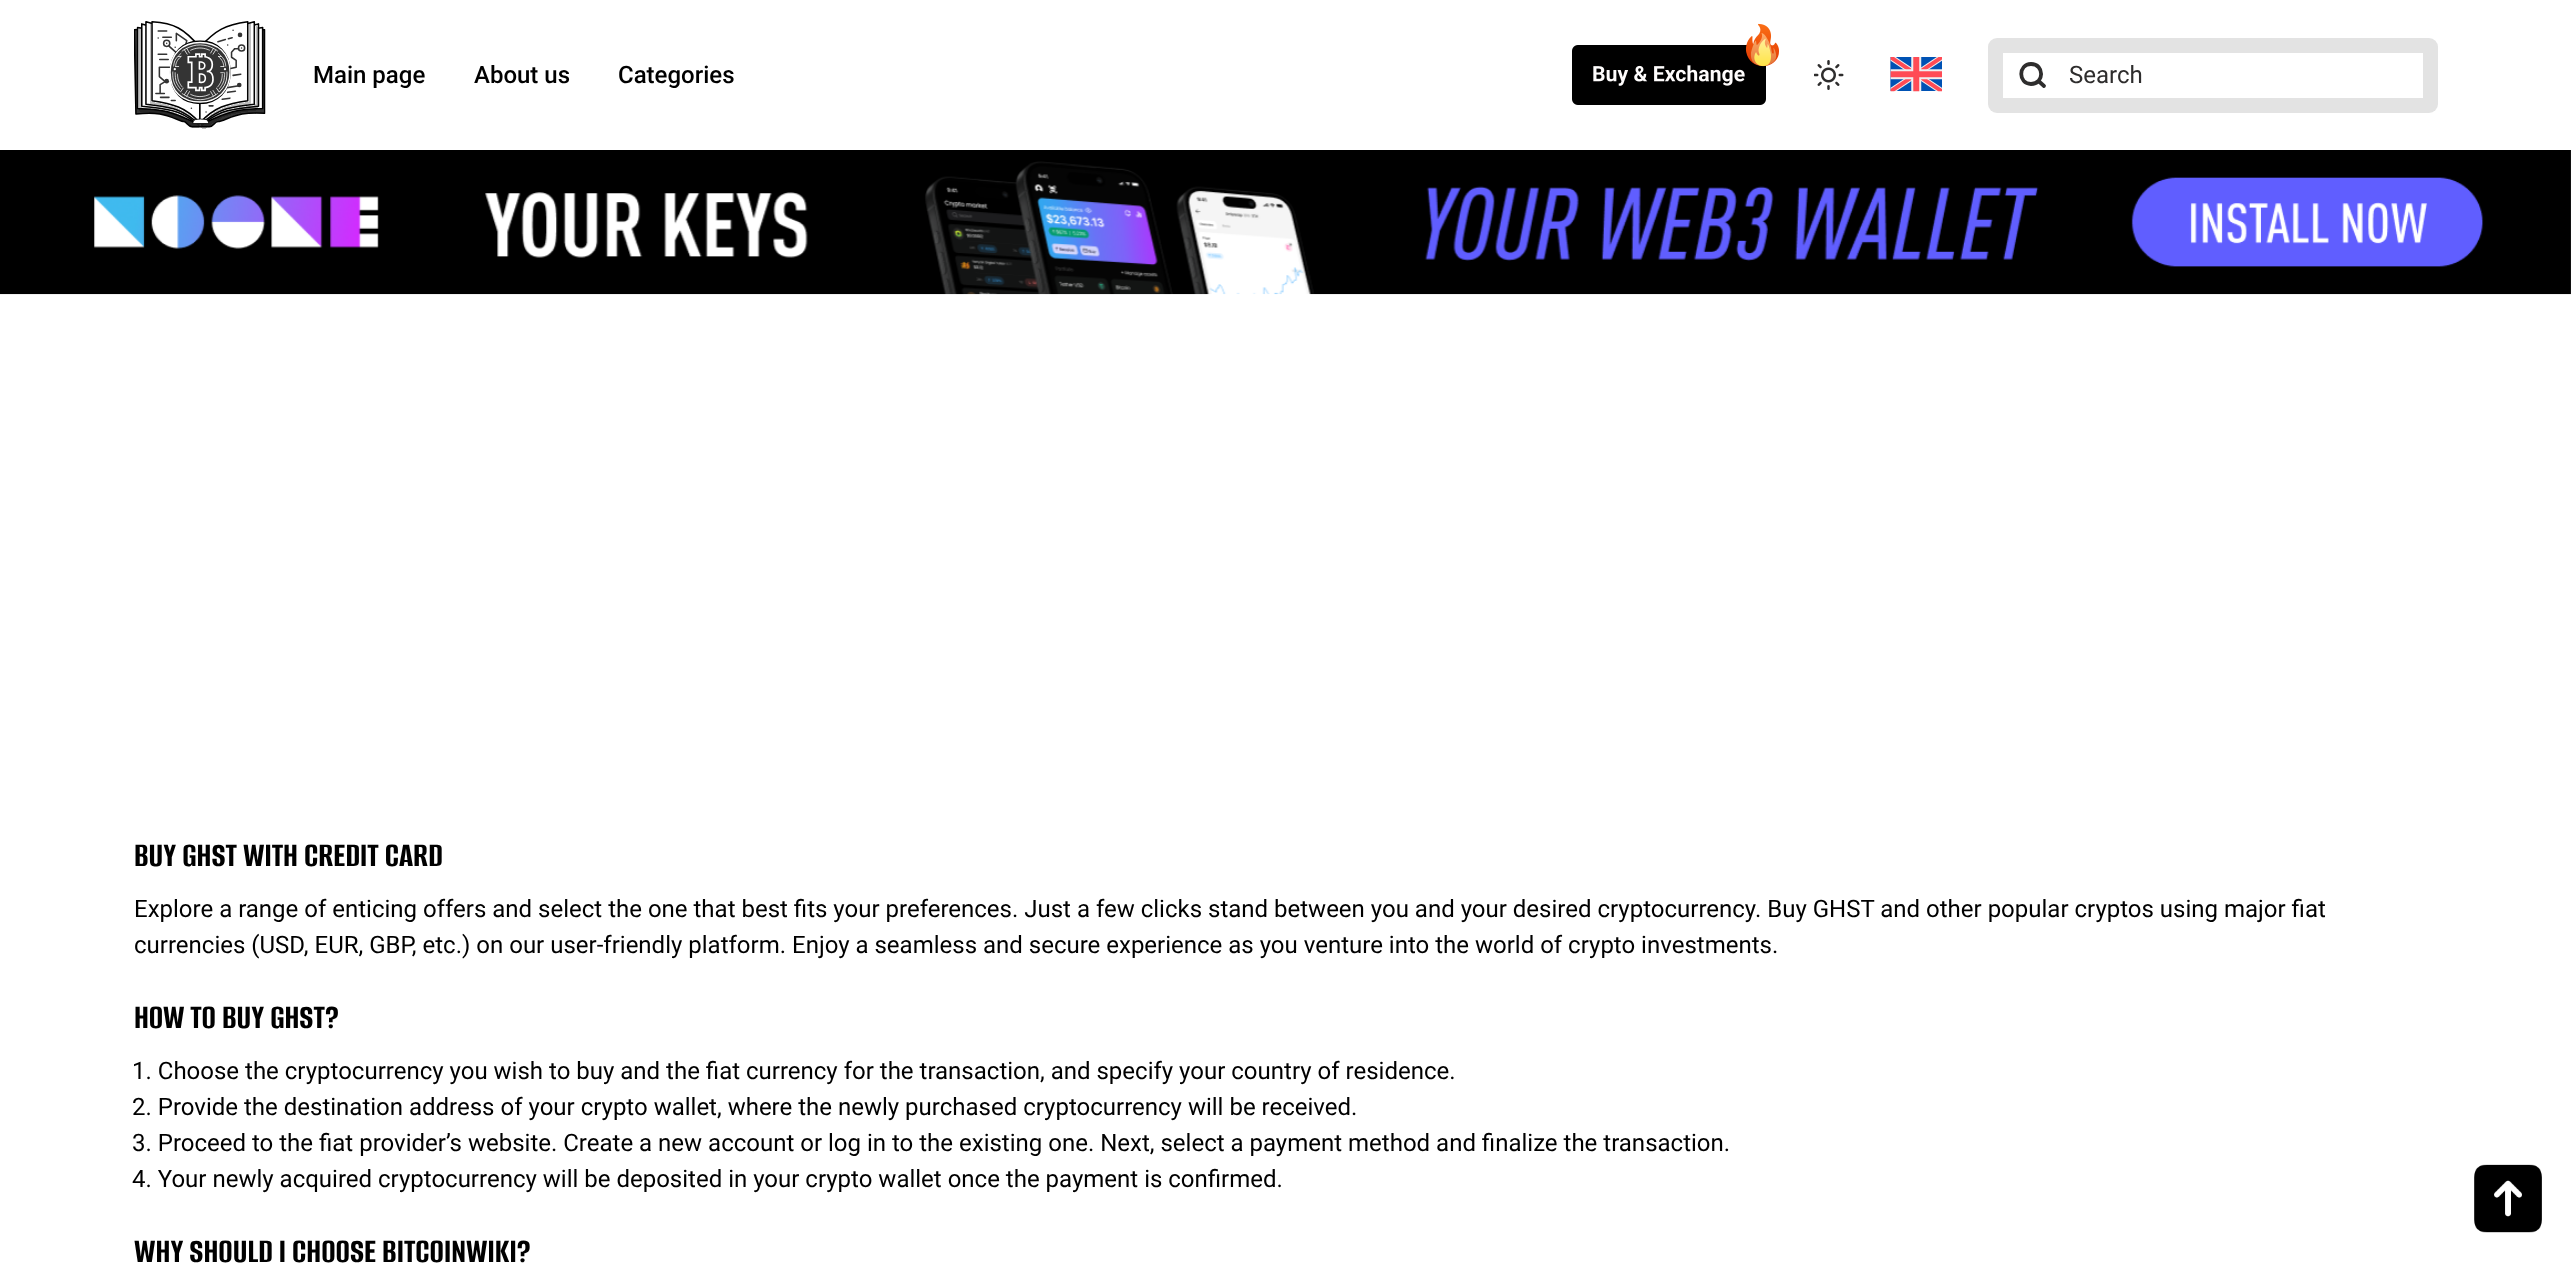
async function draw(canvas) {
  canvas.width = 2571;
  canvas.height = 1285;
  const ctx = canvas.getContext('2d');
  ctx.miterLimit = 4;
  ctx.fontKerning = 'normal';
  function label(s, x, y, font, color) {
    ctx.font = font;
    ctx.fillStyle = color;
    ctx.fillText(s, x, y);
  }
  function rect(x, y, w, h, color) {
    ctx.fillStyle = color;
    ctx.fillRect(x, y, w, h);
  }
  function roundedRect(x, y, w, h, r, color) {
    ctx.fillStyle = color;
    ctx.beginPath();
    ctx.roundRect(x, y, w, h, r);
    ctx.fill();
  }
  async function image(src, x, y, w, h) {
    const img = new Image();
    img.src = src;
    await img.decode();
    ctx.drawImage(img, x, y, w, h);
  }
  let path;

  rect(0, 0, 2571, 1285, '#fff');
  await image('assets/img1.png', 134, 21, 132, 108);
  label('Main page', 313, 83, '500 24px Roboto', '#000');
  label('About us', 474, 83, '500 24px Roboto', '#000');
  label('Categories', 618, 83, '500 24px Roboto', '#000');
  await image('assets/img3.png', 1572, 45, 194, 60);
  await image('assets/img2.png', 1745, 23, 34, 44);
  await image('assets/img4.png', 1814, 60, 30, 30);
  await image('assets/img5.png', 1890, 57, 52, 35);
  roundedRect(1988, 38, 450, 75, 9, '#e3e3e3');
  rect(2003, 53, 420, 45, '#fff');
  path = new Path2D('M2031 84C2044.5 84 2044.5 64 2031 64C2018 64 2018 84 2031 84ZM2044 86L2038.5 81');
  ctx.strokeStyle = '#2e2d2d';
  ctx.lineWidth = 3.8;
  ctx.lineCap = 'round';
  ctx.lineJoin = 'round';
  ctx.stroke(path);
  label('Search', 2069, 83, '24px Roboto', '#2e2d2d');
  await image('assets/img6.png', 0, 150, 2571, 145);
  label('BUY GHST WITH CREDIT CARD', 134, 866, 'bold 36px Alumni Sans', '#000');
  label('Explore a range of enticing offers and select the one that best fits your preferences. Just a few clicks stand between you and your desired cryptocurrency. Buy GHST and other popular cryptos using major fiat', 134, 917, '24px Roboto', '#000');
  label('currencies (USD, EUR, GBP, etc.) on our user-friendly platform. Enjoy a seamless and secure experience as you venture into the world of crypto investments.', 134, 953, '24px Roboto', '#000');
  label('HOW TO BUY GHST?', 134, 1028, 'bold 36px Alumni Sans', '#000');
  label('1. Choose the cryptocurrency you wish to buy and the fiat currency for the transaction, and specify your country of residence.', 132, 1079, '24px Roboto', '#000');
  label('2. Provide the destination address of your crypto wallet, where the newly purchased cryptocurrency will be received.', 132, 1115, '24px Roboto', '#000');
  label('3. Proceed to the fiat provider’s website. Create a new account or log in to the existing one. Next, select a payment method and finalize the transaction.', 132, 1151, '24px Roboto', '#000');
  label('4. Your newly acquired cryptocurrency will be deposited in your crypto wallet once the payment is confirmed.', 132, 1187, '24px Roboto', '#000');
  label('WHY SHOULD I CHOOSE BITCOINWIKI?', 134, 1262, 'bold 36px Alumni Sans', '#000');
  await image('assets/img7.png', 2474, 1164, 68, 69);
}

draw(document.querySelector('canvas'));
